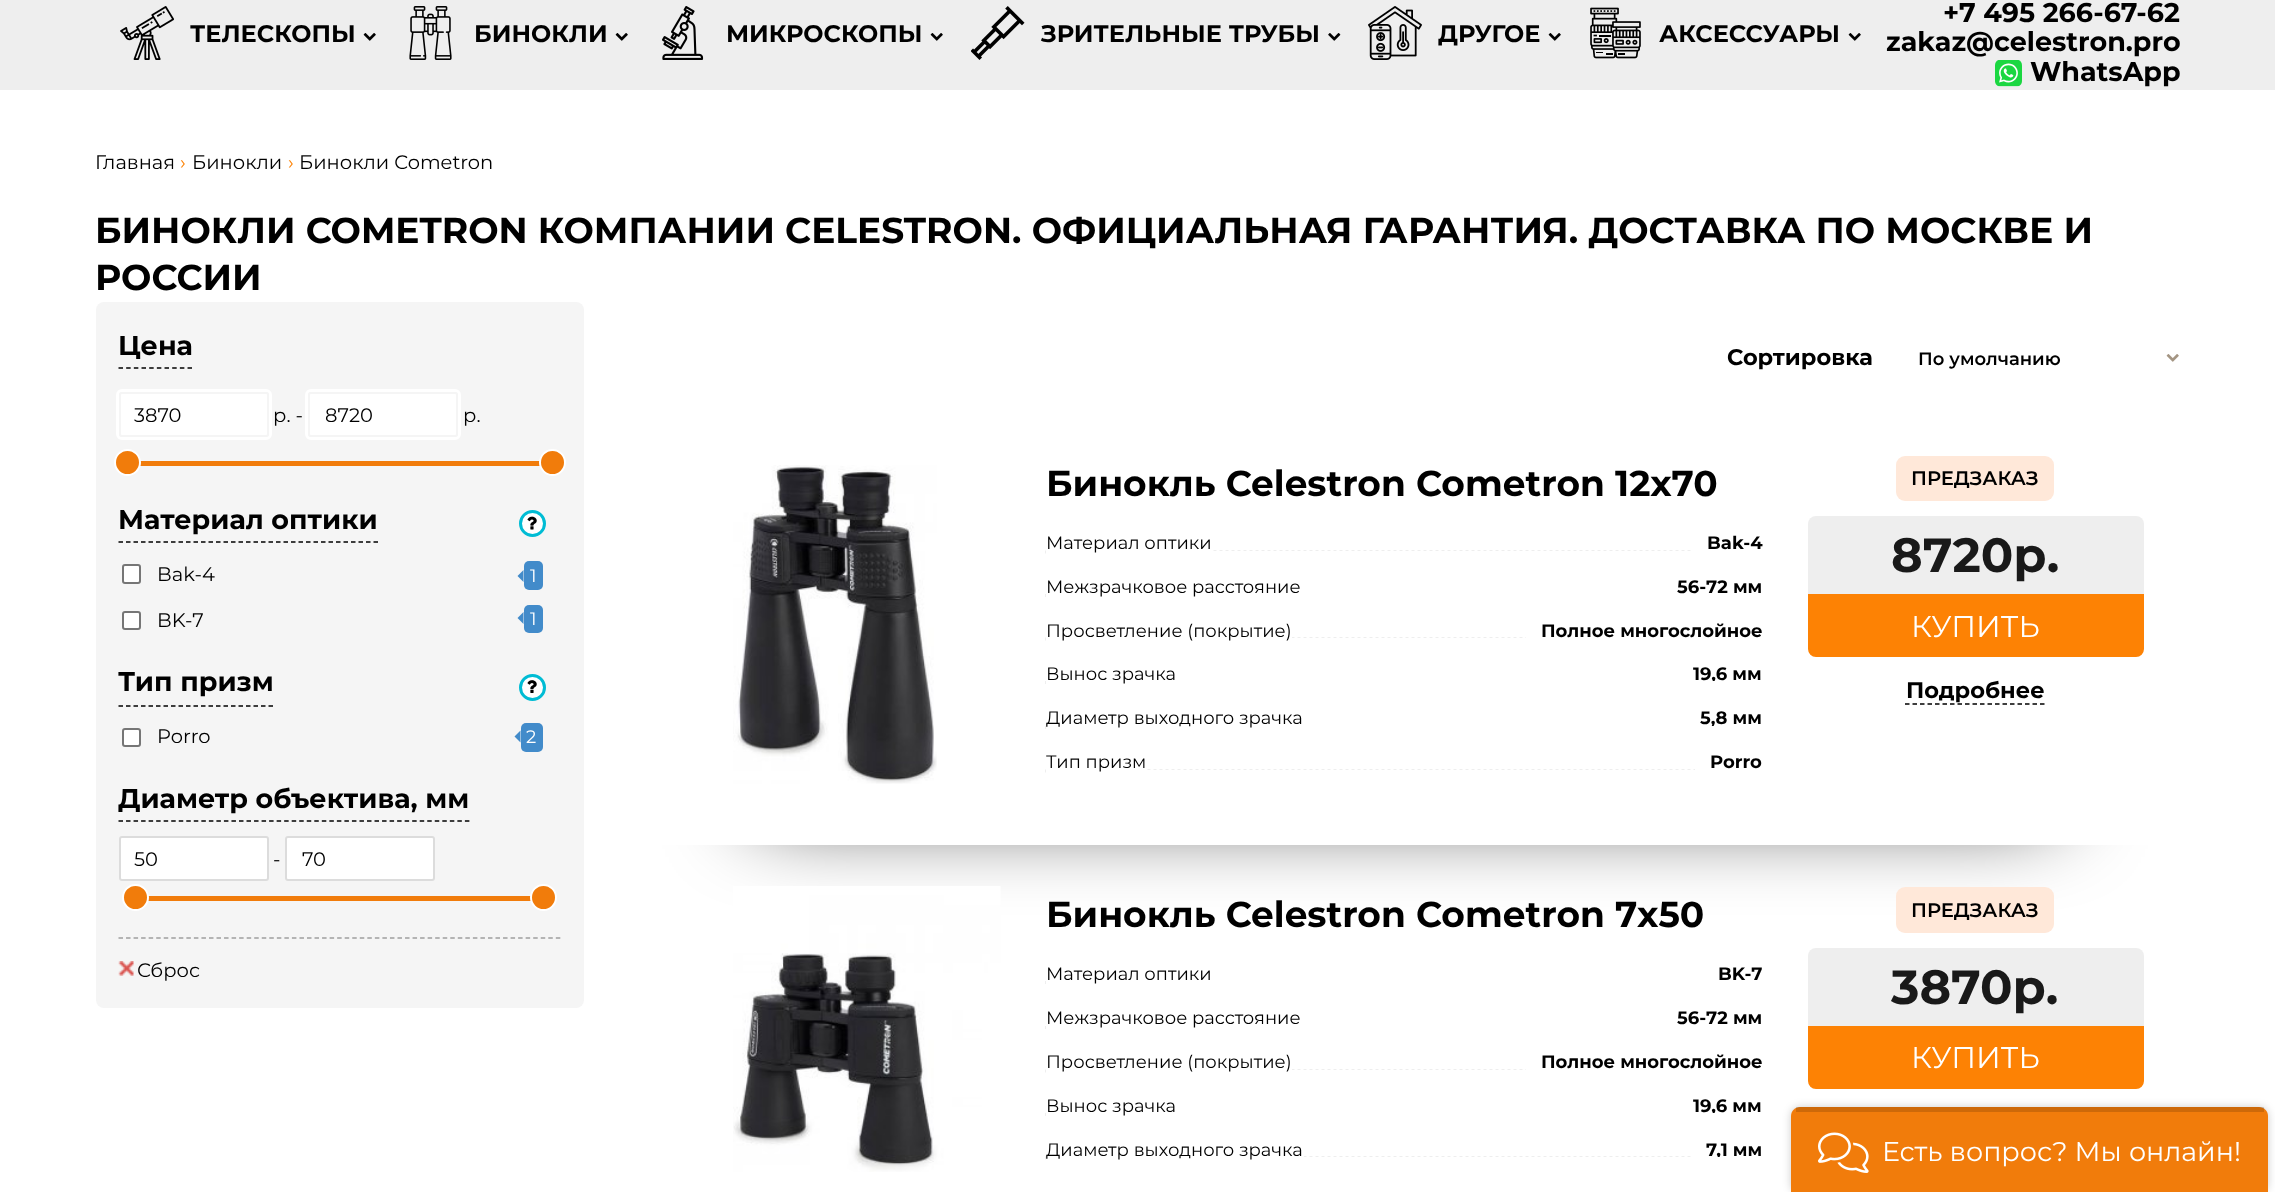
async function draw(canvas) {
  canvas.width = 2275;
  canvas.height = 1192;
  const ctx = canvas.getContext('2d');
  ctx.miterLimit = 4;
  ctx.fontKerning = 'normal';
  function label(s, x, y, font, color) {
    ctx.font = font;
    ctx.fillStyle = color;
    ctx.fillText(s, x, y);
  }
  function rect(x, y, w, h, color) {
    ctx.fillStyle = color;
    ctx.fillRect(x, y, w, h);
  }
  function roundedRect(x, y, w, h, r, color) {
    ctx.fillStyle = color;
    ctx.beginPath();
    ctx.roundRect(x, y, w, h, r);
    ctx.fill();
  }
  async function image(src, x, y, w, h) {
    const img = new Image();
    img.src = src;
    await img.decode();
    ctx.drawImage(img, x, y, w, h);
  }
  let path;

  rect(0, 0, 2275, 1192, '#fff');
  rect(0, 0, 2275, 90, '#eee');
  await image('assets/img1.png', 120, 6, 54, 54);
  label('ТЕЛЕСКОПЫ', 190, 42, 'bold 24px Montserrat', '#000');
  await image('assets/img2.png', 363, 33, 13, 8);
  await image('assets/img3.png', 409, 6, 43, 54);
  label('БИНОКЛИ', 474, 42, 'bold 24px Montserrat', '#000');
  await image('assets/img2.png', 615, 33, 13, 8);
  await image('assets/img4.png', 662, 6, 42, 54);
  label('МИКРОСКОПЫ', 726, 42, 'bold 24px Montserrat', '#000');
  await image('assets/img2.png', 930, 33, 13, 8);
  await image('assets/img5.png', 971, 6, 54, 54);
  label('ЗРИТЕЛЬНЫЕ ТРУБЫ', 1041, 42, 'bold 24px Montserrat', '#000');
  await image('assets/img6.png', 1328, 33, 13, 8);
  await image('assets/img7.png', 1368, 6, 54, 54);
  label('ДРУГОЕ', 1438, 42, 'bold 24px Montserrat', '#000');
  await image('assets/img2.png', 1548, 33, 13, 8);
  await image('assets/img8.png', 1590, 7, 51, 52);
  label('АКСЕССУАРЫ', 1659, 42, 'bold 24px Montserrat', '#000');
  await image('assets/img2.png', 1848, 33, 13, 8);
  label('+7 495 266-67-62', 1943, 22, 'bold 27px Montserrat', '#000');
  label('zakaz@celestron.pro', 1886, 51, 'bold 27px Montserrat', '#000');
  await image('assets/img9.png', 1995, 60, 27, 27);
  label('WhatsApp', 2030, 81, 'bold 27px Montserrat', '#000');
  label('Главная', 95, 169, '19.5px Montserrat', '#000');
  label('›', 180, 169, '19.5px Montserrat', '#fd8204');
  label('Бинокли', 192, 169, '19.5px Montserrat', '#000');
  label('›', 288, 169, '19.5px Montserrat', '#fd8204');
  label('Бинокли Cometron', 299, 169, '19.5px Montserrat', '#000');
  label('БИНОКЛИ COMETRON КОМПАНИИ CELESTRON. ОФИЦИАЛЬНАЯ ГАРАНТИЯ. ДОСТАВКА ПО МОСКВЕ И', 95, 243, 'bold 36px Montserrat', '#000');
  label('РОССИИ', 95, 290, 'bold 36px Montserrat', '#000');
  roundedRect(96, 302, 488, 706, 8, '#f5f5f5');
  path = new Path2D('M118.5 368H192');
  ctx.strokeStyle = '#000';
  ctx.lineWidth = 1.5;
  ctx.setLineDash([4.5, 3.17]);
  ctx.stroke(path);
  label('Цена', 118, 355, 'bold 27px Montserrat', '#000');
  ctx.beginPath();
  ctx.roundRect(117.5, 390.5, 153, 48, 4.5);
  ctx.strokeStyle = '#fff';
  ctx.lineWidth = 3;
  ctx.setLineDash([]);
  ctx.stroke();
  ctx.fillStyle = '#fff';
  ctx.beginPath();
  ctx.roundRect(120, 393, 148, 43, 2);
  ctx.fill();
  ctx.strokeStyle = '#f5f5f5';
  ctx.lineWidth = 2;
  ctx.stroke();
  label('3870', 134, 422, '19.5px Montserrat', '#000');
  label('р. -', 273, 422, '19.5px Montserrat', '#000');
  ctx.beginPath();
  ctx.roundRect(306.5, 390.5, 153, 48, 4.5);
  ctx.strokeStyle = '#fff';
  ctx.lineWidth = 3;
  ctx.stroke();
  ctx.fillStyle = '#fff';
  ctx.beginPath();
  ctx.roundRect(309, 393, 148, 43, 2);
  ctx.fill();
  ctx.strokeStyle = '#f5f5f5';
  ctx.lineWidth = 2;
  ctx.stroke();
  label('8720', 325, 422, '19.5px Montserrat', '#000');
  label('р.', 463, 422, '19.5px Montserrat', '#000');
  rect(140, 461, 400, 5, '#f17c0b');
  ctx.beginPath();
  ctx.arc(127.5, 462.5, 12.5, 0, 2 * Math.PI);
  ctx.fill();
  ctx.strokeStyle = '#fff';
  ctx.stroke();
  ctx.beginPath();
  ctx.arc(552.5, 462.5, 12.5, 0, 2 * Math.PI);
  ctx.fill();
  ctx.stroke();
  path = new Path2D('M118.5 542H378');
  ctx.strokeStyle = '#000';
  ctx.lineWidth = 1.5;
  ctx.setLineDash([4.5, 3]);
  ctx.stroke(path);
  label('Материал оптики', 118, 529, 'bold 27px Montserrat', '#000');
  ctx.fillStyle = '#fff';
  ctx.beginPath();
  ctx.arc(532.5, 523.5, 12, 0, 2 * Math.PI);
  ctx.fill();
  ctx.strokeStyle = '#00bcd4';
  ctx.lineWidth = 3;
  ctx.setLineDash([]);
  ctx.stroke();
  await image('assets/img10.png', 527, 516, 10, 14);
  ctx.beginPath();
  ctx.roundRect(123, 565, 17, 18, 2);
  ctx.fill();
  ctx.strokeStyle = '#767676';
  ctx.lineWidth = 2;
  ctx.stroke();
  label('Bak-4', 157, 581, '19.5px Montserrat', '#000');
  roundedRect(524, 561, 19, 29, 5, '#428bca');
  path = new Path2D('M523.5 570V582L517.5 576Z');
  ctx.fill(path);
  label('1', 530, 582, '18px Montserrat', '#fff');
  ctx.beginPath();
  ctx.roundRect(123, 612, 17, 17, 2);
  ctx.fill();
  ctx.stroke();
  label('BK-7', 157, 627, '19.5px Montserrat', '#000');
  roundedRect(524, 605, 19, 28, 5, '#428bca');
  path = new Path2D('M523.5 612V624L517.5 618Z');
  ctx.fill(path);
  label('1', 530, 625, '18px Montserrat', '#fff');
  path = new Path2D('M118.5 706H273');
  ctx.strokeStyle = '#000';
  ctx.lineWidth = 1.5;
  ctx.setLineDash([4.5, 3]);
  ctx.stroke(path);
  label('Тип призм', 118, 691, 'bold 27px Montserrat', '#000');
  ctx.fillStyle = '#fff';
  ctx.beginPath();
  ctx.arc(532.5, 687.5, 12, 0, 2 * Math.PI);
  ctx.fill();
  ctx.strokeStyle = '#00bcd4';
  ctx.lineWidth = 3;
  ctx.setLineDash([]);
  ctx.stroke();
  await image('assets/img11.png', 527, 680, 10, 13);
  ctx.beginPath();
  ctx.roundRect(123, 729, 17, 17, 2);
  ctx.fill();
  ctx.strokeStyle = '#767676';
  ctx.lineWidth = 2;
  ctx.stroke();
  label('Porro', 157, 743, '19.5px Montserrat', '#000');
  roundedRect(521, 723, 22, 29, 5, '#428bca');
  path = new Path2D('M520.5 730.5V742.5L514.5 736.5Z');
  ctx.fill(path);
  label('2', 526, 743, '18px Montserrat', '#fff');
  path = new Path2D('M118.5 821H469.5');
  ctx.strokeStyle = '#000';
  ctx.lineWidth = 1.5;
  ctx.setLineDash([4.5, 3.03]);
  ctx.stroke(path);
  label('Диаметр объектива, мм', 118, 808, 'bold 27px Montserrat', '#000');
  ctx.fillStyle = '#fff';
  ctx.beginPath();
  ctx.roundRect(120, 837, 148, 43, 2);
  ctx.fill();
  ctx.strokeStyle = '#dcdcdc';
  ctx.lineWidth = 2;
  ctx.setLineDash([]);
  ctx.stroke();
  label('50', 134, 866, '19.5px Montserrat', '#000');
  label('-', 273, 866, '19.5px Montserrat', '#000');
  ctx.fillStyle = '#fff';
  ctx.beginPath();
  ctx.roundRect(286, 837, 148, 43, 2);
  ctx.fill();
  ctx.stroke();
  label('70', 302, 866, '19.5px Montserrat', '#000');
  rect(148, 896, 383, 5, '#f17c0b');
  ctx.beginPath();
  ctx.arc(135.5, 897.5, 12.5, 0, 2 * Math.PI);
  ctx.fill();
  ctx.strokeStyle = '#fff';
  ctx.stroke();
  ctx.beginPath();
  ctx.arc(543.5, 897.5, 12.5, 0, 2 * Math.PI);
  ctx.fill();
  ctx.stroke();
  path = new Path2D('M118.5 938H561');
  ctx.strokeStyle = '#9e9e9e';
  ctx.lineWidth = 1.5;
  ctx.setLineDash([4.5, 3.04]);
  ctx.stroke(path);
  await image('assets/img12.png', 118, 961, 16, 15);
  label('Сброс', 137, 977, '19.5px Montserrat', '#000');
  label('Сортировка', 1727, 365, 'bold 22.5px Montserrat', '#000');
  label('По умолчанию', 1918, 365, '600 18px Montserrat', '#000');
  await image('assets/img13.png', 2166, 354, 13, 8);
  path = new Path2D('M1045.5 552H1762.5');
  ctx.strokeStyle = '#ddd';
  ctx.lineWidth = 3;
  ctx.setLineDash([3, 3]);
  ctx.stroke(path);
  path = new Path2D('M1045.5 595.5H1762.5');
  ctx.stroke(path);
  path = new Path2D('M1045.5 639H1762.5');
  ctx.stroke(path);
  path = new Path2D('M1045.5 682.5H1762.5');
  ctx.stroke(path);
  path = new Path2D('M1045.5 727.5H1762.5');
  ctx.stroke(path);
  path = new Path2D('M1045.5 771H1762.5');
  ctx.stroke(path);
  ctx.save();
  path = new Path2D('M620 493H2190V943H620ZM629 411H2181V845H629Z');
  ctx.clip(path, 'evenodd');
  ctx.filter = 'blur(45px)';
  ctx.beginPath();
  ctx.rect(756, 629, 1298, 178);
  ctx.fill();
  ctx.filter = 'none';
  ctx.restore();
  await image('assets/img14.png', 733, 465, 204, 319);
  label('Бинокль Celestron Cometron 12x70', 1046, 496, 'bold 36px Montserrat', '#000');
  rect(1046, 550, 165, 1, '#fff');
  rect(1046, 551, 645, 3, '#fff');
  label('Материал оптики', 1046, 549, '18px Montserrat', '#000');
  rect(1693, 550, 70, 4, '#fff');
  label('Bak-4', 1707, 549, 'bold 18px Montserrat', '#000');
  rect(1046, 594, 615, 3, '#fff');
  label('Межзрачковое расстояние', 1046, 593, '18px Montserrat', '#000');
  rect(1663, 594, 100, 3, '#fff');
  label('56-72 мм', 1677, 593, 'bold 18px Montserrat', '#000');
  rect(1046, 637, 246, 1, '#fff');
  rect(1046, 638, 480, 3, '#fff');
  label('Просветление (покрытие)', 1046, 637, '18px Montserrat', '#000');
  rect(1526, 637, 237, 4, '#fff');
  label('Полное многослойное', 1541, 637, 'bold 18px Montserrat', '#000');
  rect(1046, 681, 129, 3, '#fff');
  rect(1681, 681, 82, 3, '#fff');
  label('19,6 мм', 1693, 680, 'bold 18px Montserrat', '#000');
  rect(1177, 681, 538, 3, '#fff');
  label('Вынос зрачка', 1046, 680, '18px Montserrat', '#000');
  rect(1687, 726, 76, 3, '#fff');
  label('5,8 мм', 1700, 724, 'bold 18px Montserrat', '#000');
  rect(1046, 726, 668, 3, '#fff');
  label('Диаметр выходного зрачка', 1046, 724, '18px Montserrat', '#000');
  rect(1046, 769, 99, 1, '#fff');
  rect(1046, 770, 649, 3, '#fff');
  label('Тип призм', 1046, 768, '18px Montserrat', '#000');
  rect(1695, 769, 68, 4, '#fff');
  label('Porro', 1710, 768, 'bold 18px Montserrat', '#000');
  roundedRect(1896, 456, 158, 45, 9, '#ffe8d9');
  label('ПРЕДЗАКАЗ', 1911, 485, '600 19.5px Montserrat', '#000');
  ctx.fillStyle = '#eee';
  ctx.beginPath();
  ctx.roundRect(1808, 516, 336, 78, [8, 8, 0, 0]);
  ctx.fill();
  label('8720р.', 1891, 572, 'bold 48px Montserrat', '#191919');
  ctx.fillStyle = '#fd8204';
  ctx.beginPath();
  ctx.roundRect(1809, 595, 334, 61, [0, 0, 7, 7]);
  ctx.fill();
  ctx.strokeStyle = '#fd8204';
  ctx.lineWidth = 2;
  ctx.setLineDash([]);
  ctx.stroke();
  label('КУПИТЬ', 1911, 637, '30px Montserrat', '#fff');
  label('Подробнее', 1906, 698, 'bold 22.5px Montserrat', '#000');
  path = new Path2D('M1905 704H2044.5');
  ctx.strokeStyle = '#000';
  ctx.lineWidth = 1.5;
  ctx.setLineDash([4.5, 3]);
  ctx.stroke(path);
  await image('assets/img15.png', 733, 886, 268, 286);
  label('Бинокль Celestron Cometron 7x50', 1046, 927, 'bold 36px Montserrat', '#000');
  path = new Path2D('M1045.5 982.5H1762.5');
  ctx.strokeStyle = '#ddd';
  ctx.lineWidth = 3;
  ctx.setLineDash([3, 3]);
  ctx.stroke(path);
  rect(1046, 981, 165, 3, '#fff');
  rect(1213, 981, 490, 3, '#fff');
  label('Материал оптики', 1046, 980, '18px Montserrat', '#000');
  rect(1705, 981, 58, 3, '#fff');
  label('BK-7', 1718, 980, 'bold 18px Montserrat', '#000');
  path = new Path2D('M1045.5 1027.5H1762.5');
  ctx.stroke(path);
  rect(1046, 1026, 615, 3, '#fff');
  label('Межзрачковое расстояние', 1046, 1024, '18px Montserrat', '#000');
  rect(1663, 1026, 100, 3, '#fff');
  label('56-72 мм', 1677, 1024, 'bold 18px Montserrat', '#000');
  path = new Path2D('M1045.5 1071H1762.5');
  ctx.stroke(path);
  rect(1046, 1069, 246, 1, '#fff');
  rect(1046, 1070, 480, 3, '#fff');
  label('Просветление (покрытие)', 1046, 1068, '18px Montserrat', '#000');
  rect(1526, 1069, 237, 4, '#fff');
  label('Полное многослойное', 1541, 1068, 'bold 18px Montserrat', '#000');
  path = new Path2D('M1045.5 1114.5H1762.5');
  ctx.stroke(path);
  rect(1681, 1113, 82, 3, '#fff');
  label('19,6 мм', 1693, 1112, 'bold 18px Montserrat', '#000');
  rect(1046, 1113, 669, 3, '#fff');
  label('Вынос зрачка', 1046, 1112, '18px Montserrat', '#000');
  path = new Path2D('M1045.5 1158H1762.5');
  ctx.stroke(path);
  rect(1046, 1156, 258, 1, '#fff');
  rect(1693, 1156, 70, 4, '#fff');
  label('7,1 мм', 1706, 1156, 'bold 18px Montserrat', '#000');
  rect(1046, 1157, 674, 3, '#fff');
  label('Диаметр выходного зрачка', 1046, 1156, '18px Montserrat', '#000');
  roundedRect(1896, 887, 158, 46, 9, '#ffe8d9');
  label('ПРЕДЗАКАЗ', 1911, 917, '600 19.5px Montserrat', '#000');
  ctx.fillStyle = '#eee';
  ctx.beginPath();
  ctx.roundRect(1808, 948, 336, 78, [8, 8, 0, 0]);
  ctx.fill();
  label('3870р.', 1891, 1004, 'bold 48px Montserrat', '#191919');
  ctx.fillStyle = '#fd8204';
  ctx.beginPath();
  ctx.roundRect(1809, 1027, 334, 61, [0, 0, 7, 7]);
  ctx.fill();
  ctx.strokeStyle = '#fd8204';
  ctx.lineWidth = 2;
  ctx.setLineDash([]);
  ctx.stroke();
  label('КУПИТЬ', 1911, 1068, '30px Montserrat', '#fff');
  ctx.fillStyle = '#00000033';
  ctx.filter = 'blur(4px)';
  ctx.beginPath();
  ctx.roundRect(1791, 1107, 477, 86, 9);
  ctx.fill();
  ctx.filter = 'none';
  ctx.fillStyle = '#f17c0b';
  path = new Path2D('M1800 1107H2259C2264 1107 2268 1111 2268 1116V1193H1791V1116C1791 1111 1795 1107 1800 1107Z');
  ctx.fill(path);
  rect(1796, 1107, 468, 5, '#00000026');
  await image('assets/img16.png', 1818, 1132, 51, 41);
  label('Есть вопрос? Мы онлайн!', 1882, 1161, '27px Montserrat', '#fff');
}

draw(document.querySelector('canvas'));
